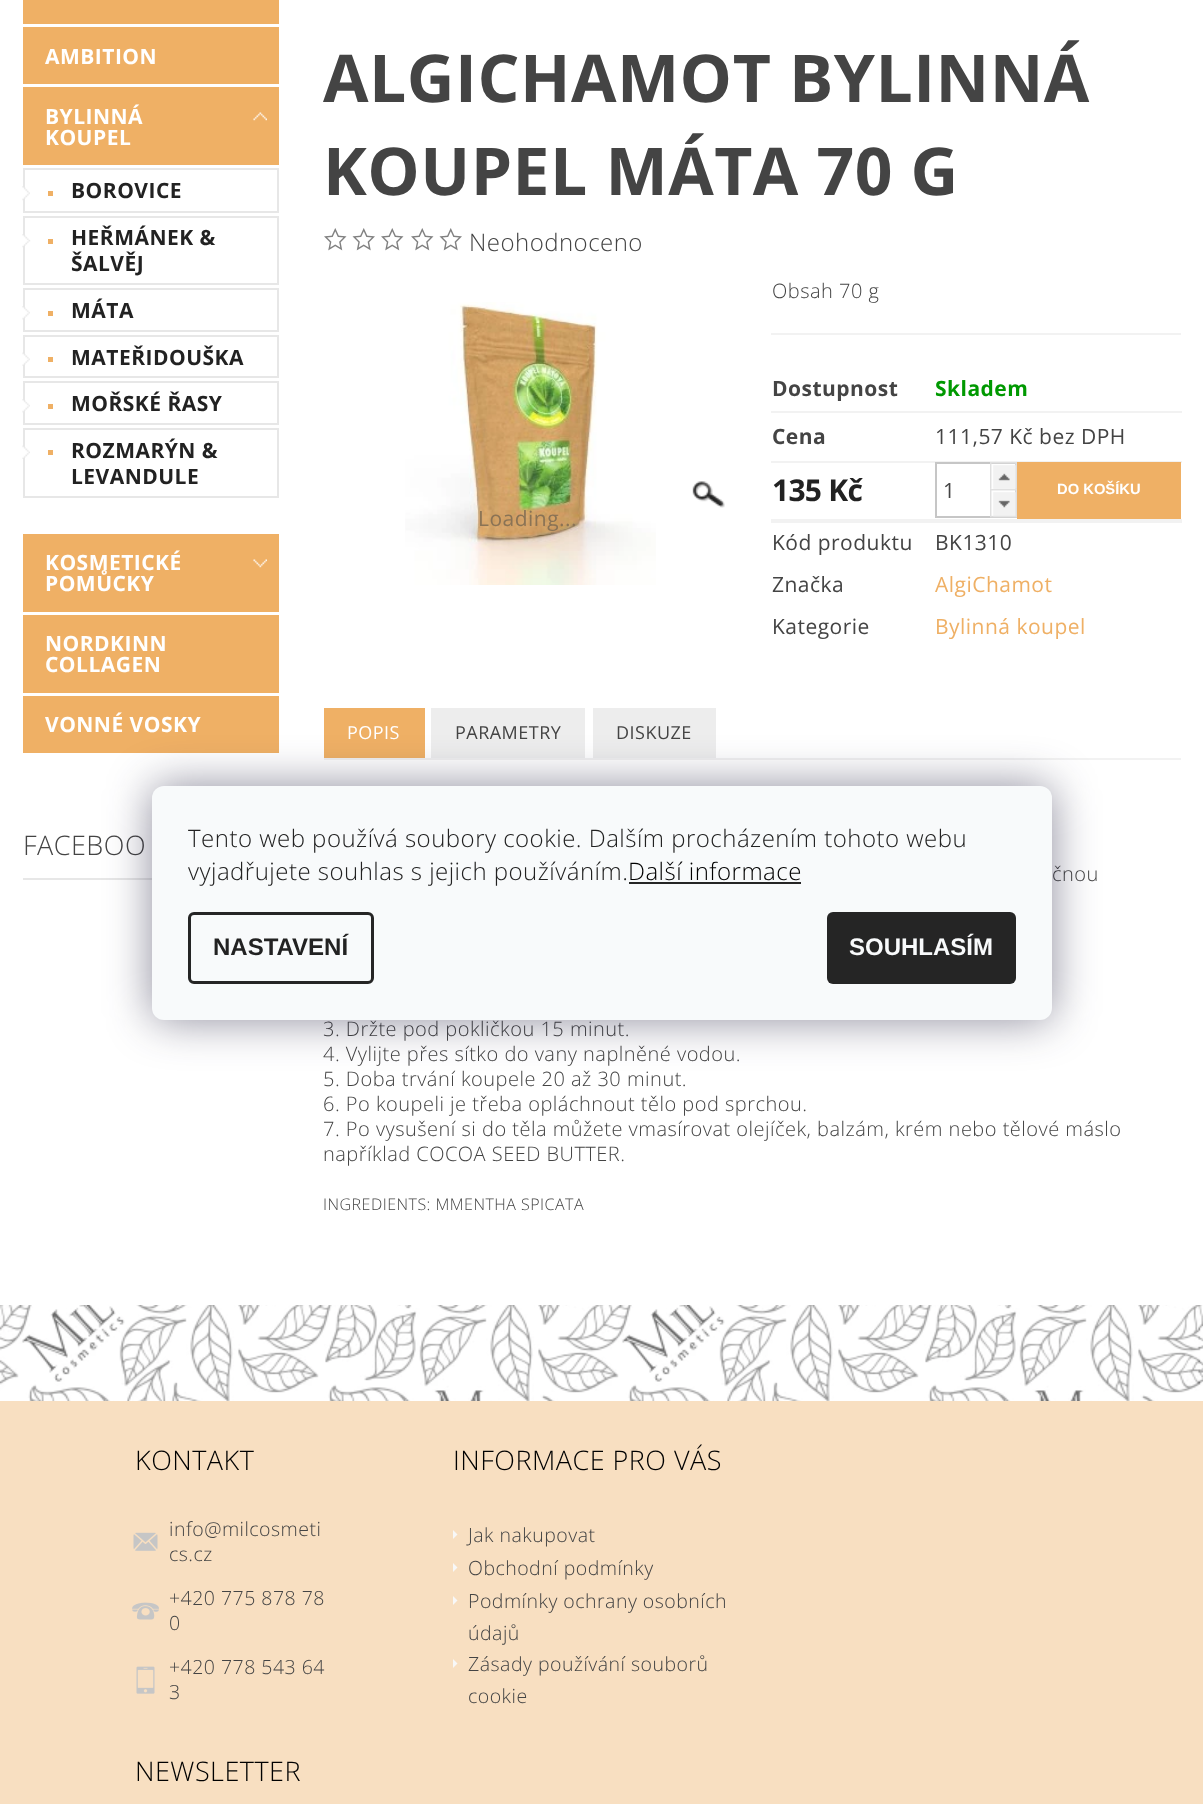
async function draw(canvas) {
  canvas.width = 1203;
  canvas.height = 1804;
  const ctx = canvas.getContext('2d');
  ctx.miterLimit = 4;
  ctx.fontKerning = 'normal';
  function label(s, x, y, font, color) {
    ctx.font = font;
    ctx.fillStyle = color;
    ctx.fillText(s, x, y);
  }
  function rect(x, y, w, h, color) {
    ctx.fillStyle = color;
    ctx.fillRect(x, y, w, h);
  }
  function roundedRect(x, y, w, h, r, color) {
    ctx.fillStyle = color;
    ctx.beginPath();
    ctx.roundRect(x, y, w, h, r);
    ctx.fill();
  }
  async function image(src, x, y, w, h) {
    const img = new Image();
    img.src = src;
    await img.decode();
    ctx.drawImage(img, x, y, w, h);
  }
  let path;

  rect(0, 0, 1203, 1804, '#fff');
  await image('assets/img1.png', 0, 1305, 1203, 96);
  rect(23, 0, 256, 24, '#efb065');
  rect(23, 27, 256, 57, '#efb065');
  ctx.letterSpacing = '0.48px';
  label('AMBITION', 45, 64, 'bold 21px Open Sans', '#fff');
  rect(23, 87, 256, 78, '#efb065');
  await image('assets/img2.png', 253, 112, 14, 9);
  label('BYLINNÁ', 45, 124, 'bold 21px Open Sans', '#fff');
  label('KOUPEL', 45, 145, 'bold 21px Open Sans', '#fff');
  ctx.strokeStyle = '#e7e7e7';
  ctx.lineWidth = 2;
  ctx.strokeRect(24, 169, 254, 43);
  await image('assets/img3.png', 22, 186, 8, 15);
  rect(48, 191, 5, 5, '#efb065');
  label('BOROVICE', 71, 198, 'bold 21px Open Sans', '#222');
  ctx.strokeRect(24, 217, 254, 67);
  await image('assets/img4.png', 22, 234, 9, 14);
  rect(48, 239, 5, 5, '#efb065');
  label('HEŘMÁNEK &', 71, 245, 'bold 21px Open Sans', '#222');
  label('ŠALVĚJ', 71, 271, 'bold 21px Open Sans', '#222');
  ctx.strokeRect(24, 289, 254, 42);
  await image('assets/img5.png', 22, 306, 8, 14);
  rect(48, 311, 5, 5, '#efb065');
  label('MÁTA', 71, 318, 'bold 21px Open Sans', '#222');
  ctx.strokeRect(24, 336, 254, 41);
  await image('assets/img6.png', 22, 352, 8, 14);
  rect(48, 357, 5, 5, '#efb065');
  label('MATEŘIDOUŠKA', 71, 365, 'bold 21px Open Sans', '#222');
  ctx.strokeRect(24, 382, 254, 42);
  await image('assets/img5.png', 22, 399, 8, 14);
  rect(48, 404, 5, 5, '#efb065');
  label('MOŘSKÉ ŘASY', 71, 411, 'bold 21px Open Sans', '#222');
  ctx.strokeRect(24, 429, 254, 68);
  await image('assets/img7.png', 22, 445, 8, 14);
  rect(48, 450, 5, 5, '#efb065');
  label('ROZMARÝN &', 71, 458, 'bold 21px Open Sans', '#222');
  label('LEVANDULE', 71, 484, 'bold 21px Open Sans', '#222');
  rect(23, 534, 256, 78, '#efb065');
  await image('assets/img8.png', 253, 559, 14, 9);
  label('KOSMETICKÉ', 45, 570, 'bold 21px Open Sans', '#fff');
  label('POMŮCKY', 45, 591, 'bold 21px Open Sans', '#fff');
  rect(23, 615, 256, 78, '#efb065');
  label('NORDKINN', 45, 651, 'bold 21px Open Sans', '#fff');
  label('COLLAGEN', 45, 672, 'bold 21px Open Sans', '#fff');
  rect(23, 696, 256, 57, '#efb065');
  label('VONNÉ VOSKY', 45, 732, 'bold 21px Open Sans', '#fff');
  rect(23, 878, 129, 2, '#e7e7e7');
  label('FACEBOO', 23, 855, '300 27px Open Sans', '#444');
  label('ALGICHAMOT BYLINNÁ', 323, 102, 'bold 66px Open Sans', '#444');
  label('KOUPEL MÁTA 70 G', 323, 195, 'bold 66px Open Sans', '#444');
  await image('assets/img9.png', 324, 228, 23, 23);
  await image('assets/img10.png', 352, 228, 23, 23);
  await image('assets/img9.png', 381, 228, 23, 23);
  await image('assets/img9.png', 411, 228, 23, 23);
  await image('assets/img10.png', 439, 228, 23, 23);
  label('Neohodnoceno', 469, 251, '300 24px Open Sans', '#444');
  await image('assets/img11.png', 692, 481, 33, 27);
  await image('assets/img12.png', 405, 302, 251, 283);
  label('Loading...', 478, 526, '21px Open Sans', '#8a7355');
  rect(771, 333, 410, 2, '#f2f2f2');
  label('Obsah 70 g', 772, 298, '300 20px Open Sans', '#444');
  rect(771, 411, 411, 2, '#f2f2f2');
  label('Dostupnost', 772, 396, 'bold 21px Open Sans', '#444');
  label('Skladem', 935, 396, 'bold 21px Open Sans', '#009901');
  rect(771, 461, 411, 2, '#f2f2f2');
  label('Cena', 772, 444, 'bold 21px Open Sans', '#444');
  label('111,57 Kč bez DPH', 935, 444, '21px Open Sans', '#444');
  rect(771, 519, 411, 4, '#f2f2f2');
  ctx.letterSpacing = '-0.75px';
  label('135 Kč', 772, 501, 'bold 30px Open Sans', '#222');
  ctx.strokeStyle = '#c6c6c6';
  ctx.strokeRect(936, 463, 80, 54);
  await image('assets/img13.png', 990, 462, 27, 27);
  ctx.letterSpacing = '0px';
  label('1', 943, 498, '21px Open Sans', '#444');
  await image('assets/img14.png', 990, 489, 27, 29);
  rect(1017, 462, 164, 57, '#efb065');
  label('DO KOŠÍKU', 1057, 494, 'bold 14.75px Liberation Sans', '#fff');
  ctx.letterSpacing = '0.48px';
  label('Kód produktu', 772, 550, '21px Open Sans', '#444');
  label('BK1310', 935, 550, '21px Open Sans', '#444');
  label('Značka', 772, 592, '21px Open Sans', '#444');
  label('AlgiChamot', 935, 592, '21px Open Sans', '#efb065');
  label('Kategorie', 772, 634, '21px Open Sans', '#444');
  label('Bylinná koupel', 935, 634, '21px Open Sans', '#efb065');
  rect(324, 758, 857, 2, '#f2f2f2');
  rect(324, 708, 101, 50, '#efb065');
  label('POPIS', 347, 739, '18px Open Sans', '#fff');
  rect(431, 708, 154, 50, '#ededed');
  label('PARAMETRY', 455, 739, '18px Open Sans', '#444');
  rect(593, 708, 123, 50, '#ededed');
  label('DISKUZE', 616, 739, '18px Open Sans', '#444');
  label('čnou', 1052, 881, '300 20px Open Sans', '#444');
  label('3. Držte pod pokličkou 15 minut.', 323, 1036, '300 20px Open Sans', '#444');
  label('4. Vylijte přes sítko do vany naplněné vodou.', 323, 1061, '300 20px Open Sans', '#444');
  label('5. Doba trvání koupele 20 až 30 minut.', 323, 1086, '300 20px Open Sans', '#444');
  label('6. Po koupeli je třeba opláchnout tělo pod sprchou.', 323, 1111, '300 20px Open Sans', '#444');
  label('7. Po vysušení si do těla můžete vmasírovat olejíček, balzám, krém nebo tělové máslo', 323, 1136, '300 20px Open Sans', '#444');
  label('například COCOA SEED BUTTER.', 323, 1161, '300 20px Open Sans', '#444');
  label('INGREDIENTS: MMENTHA SPICATA', 323, 1210, '300 16px Open Sans', '#444');
  rect(0, 1401, 1203, 403, '#f8dfc1');
  label('KONTAKT', 135, 1470, '300 27px Open Sans', '#000');
  label('info@milcosmeti', 169, 1536, '300 19.5px Open Sans', '#444');
  await image('assets/img15.png', 133, 1532, 25, 19);
  label('cs.cz', 169, 1561, '300 19.5px Open Sans', '#444');
  label('+420 775 878 78', 169, 1605, '300 19.5px Open Sans', '#444');
  await image('assets/img16.png', 132, 1602, 27, 18);
  label('0', 169, 1630, '300 19.5px Open Sans', '#444');
  await image('assets/img17.png', 136, 1666, 19, 28);
  label('+420 778 543 64', 169, 1674, '300 19.5px Open Sans', '#444');
  label('3', 169, 1699, '300 19.5px Open Sans', '#444');
  label('INFORMACE PRO VÁS', 453, 1470, '300 27px Open Sans', '#000');
  ctx.fillStyle = '#f8f8f8';
  path = new Path2D('M453 1539V1530L457.5 1534.5Z');
  ctx.fill(path);
  label('Jak nakupovat', 468, 1542, '300 19.5px Open Sans', '#444');
  ctx.fillStyle = '#f8f8f8';
  path = new Path2D('M453 1572V1563L457.5 1567.5Z');
  ctx.fill(path);
  label('Obchodní podmínky', 468, 1575, '300 19.5px Open Sans', '#444');
  ctx.fillStyle = '#f8f8f8';
  path = new Path2D('M453 1605V1596L457.5 1600.5Z');
  ctx.fill(path);
  label('Podmínky ochrany osobních', 468, 1608, '300 19.5px Open Sans', '#444');
  label('údajů', 468, 1640, '300 19.5px Open Sans', '#444');
  ctx.fillStyle = '#f8f8f8';
  path = new Path2D('M453 1668V1659L457.5 1663.5Z');
  ctx.fill(path);
  label('Zásady používání souborů', 468, 1671, '300 19.5px Open Sans', '#444');
  label('cookie', 468, 1703, '300 19.5px Open Sans', '#444');
  label('NEWSLETTER', 135, 1781, '300 27px Open Sans', '#000');
  ctx.fillStyle = '#1b193980';
  ctx.filter = 'blur(22.5px)';
  ctx.beginPath();
  ctx.roundRect(152, 786, 900, 234, 12);
  ctx.fill();
  ctx.filter = 'none';
  roundedRect(152, 786, 900, 234, 12, '#f8fafb');
  label('Tento web používá soubory cookie. Dalším procházením tohoto webu', 188, 847, '300 24px Open Sans', '#222');
  label('vyjadřujete souhlas s jejich používáním.', 188, 880, '300 24px Open Sans', '#222');
  label('Další informace', 628, 880, '300 24px Open Sans', '#000');
  rect(629, 882, 172, 2, '#252525');
  ctx.beginPath();
  ctx.roundRect(189.5, 913.5, 183, 69, 4.5);
  ctx.strokeStyle = '#252525';
  ctx.lineWidth = 3;
  ctx.stroke();
  ctx.letterSpacing = '0px';
  label('NASTAVENÍ', 213, 955, 'bold 24px Liberation Sans', '#222');
  roundedRect(827, 912, 189, 72, 6, '#252525');
  label('SOUHLASÍM', 849, 955, 'bold 24px Liberation Sans', '#f8fafb');
}

draw(document.querySelector('canvas'));
